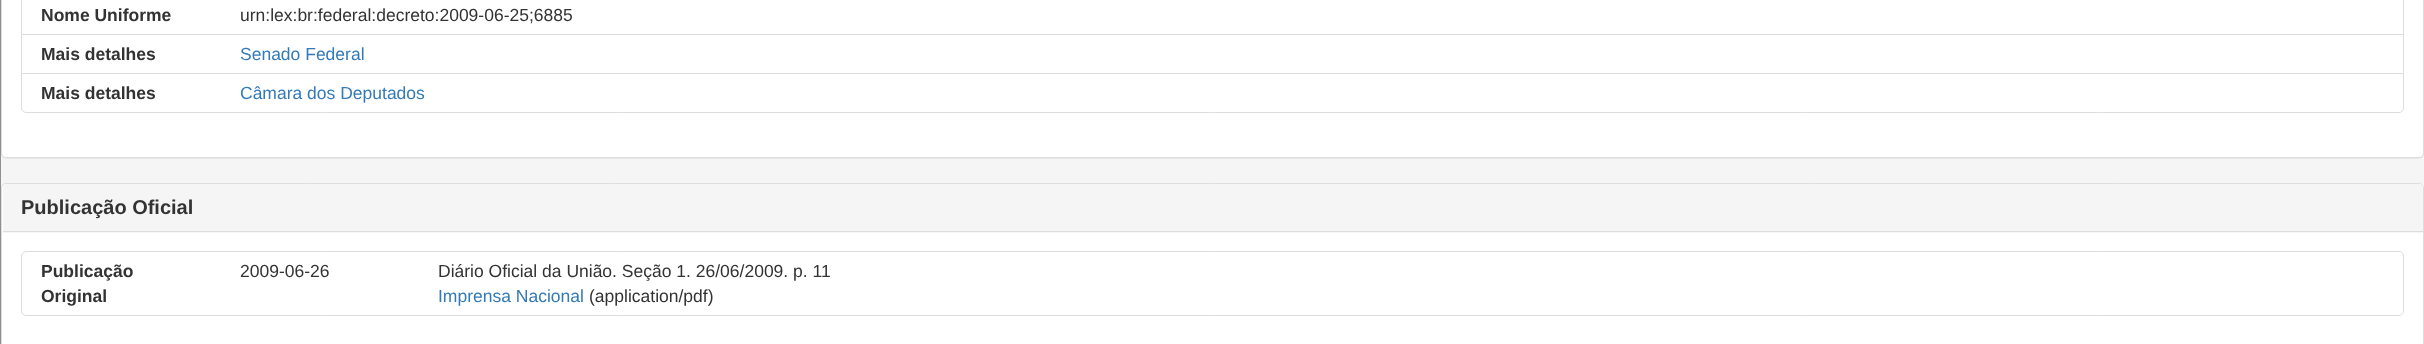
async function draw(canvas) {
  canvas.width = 2424;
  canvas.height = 344;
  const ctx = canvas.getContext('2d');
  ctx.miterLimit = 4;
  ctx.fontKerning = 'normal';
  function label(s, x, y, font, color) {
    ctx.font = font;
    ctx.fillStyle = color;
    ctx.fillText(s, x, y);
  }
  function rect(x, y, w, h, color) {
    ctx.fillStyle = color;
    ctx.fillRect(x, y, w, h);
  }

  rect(0, 0, 2424, 344, '#f5f5f5');
  ctx.strokeStyle = '#909090';
  ctx.strokeRect(0.5, -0.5, 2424, 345);
  ctx.fillStyle = '#0000000d';
  ctx.filter = 'blur(0.5px)';
  ctx.beginPath();
  ctx.roundRect(1, -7, 2423, 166, 5);
  ctx.fill();
  ctx.filter = 'none';
  ctx.fillStyle = '#fff';
  ctx.beginPath();
  ctx.roundRect(1.5, -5.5, 2422, 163, 4.5);
  ctx.fill();
  ctx.strokeStyle = '#ddd';
  ctx.stroke();
  ctx.strokeRect(21.5, -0.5, 2382, 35);
  label('Nome Uniforme', 41, 21, 'bold 17.5px Liberation Sans', '#333');
  label('urn:lex:br:federal:decreto:2009-06-25;6885', 240, 21, '17.5px Liberation Sans', '#333');
  ctx.strokeRect(21.5, 34.5, 2382, 39);
  label('Mais detalhes', 41, 60, 'bold 17.5px Liberation Sans', '#333');
  label('Senado Federal', 240, 60, '17.5px Liberation Sans', '#337ab7');
  ctx.fillStyle = '#fff';
  ctx.beginPath();
  ctx.roundRect(21.5, 73.5, 2382, 39, [0, 0, 4.5, 4.5]);
  ctx.fill();
  ctx.stroke();
  label('Mais detalhes', 41, 99, 'bold 17.5px Liberation Sans', '#333');
  label('Câmara dos Deputados', 240, 99, '17.5px Liberation Sans', '#337ab7');
  ctx.fillStyle = '#fff';
  ctx.beginPath();
  ctx.roundRect(1.5, 183.5, 2422, 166, 4.5);
  ctx.fill();
  ctx.stroke();
  ctx.fillStyle = '#f5f5f5';
  ctx.beginPath();
  ctx.roundRect(3, 184, 2420, 49, [4, 4, 0, 0]);
  ctx.fill();
  rect(3, 231, 2420, 1, '#ddd');
  label('Publicação Oficial', 21, 214, 'bold 20px Liberation Sans', '#333');
  ctx.beginPath();
  ctx.roundRect(21.5, 251.5, 2382, 64, 4.5);
  ctx.stroke();
  label('Publicação', 41, 277, 'bold 17.5px Liberation Sans', '#333');
  label('Original', 41, 302, 'bold 17.5px Liberation Sans', '#333');
  label('2009-06-26', 240, 277, '17.5px Liberation Sans', '#333');
  label('Diário Oficial da União. Seção 1. 26/06/2009. p. 11', 438, 277, '17.5px Liberation Sans', '#333');
  label('Imprensa Nacional', 438, 302, '17.5px Liberation Sans', '#337ab7');
  label('(application/pdf)', 589, 302, '17.5px Liberation Sans', '#333');
}

draw(document.querySelector('canvas'));
